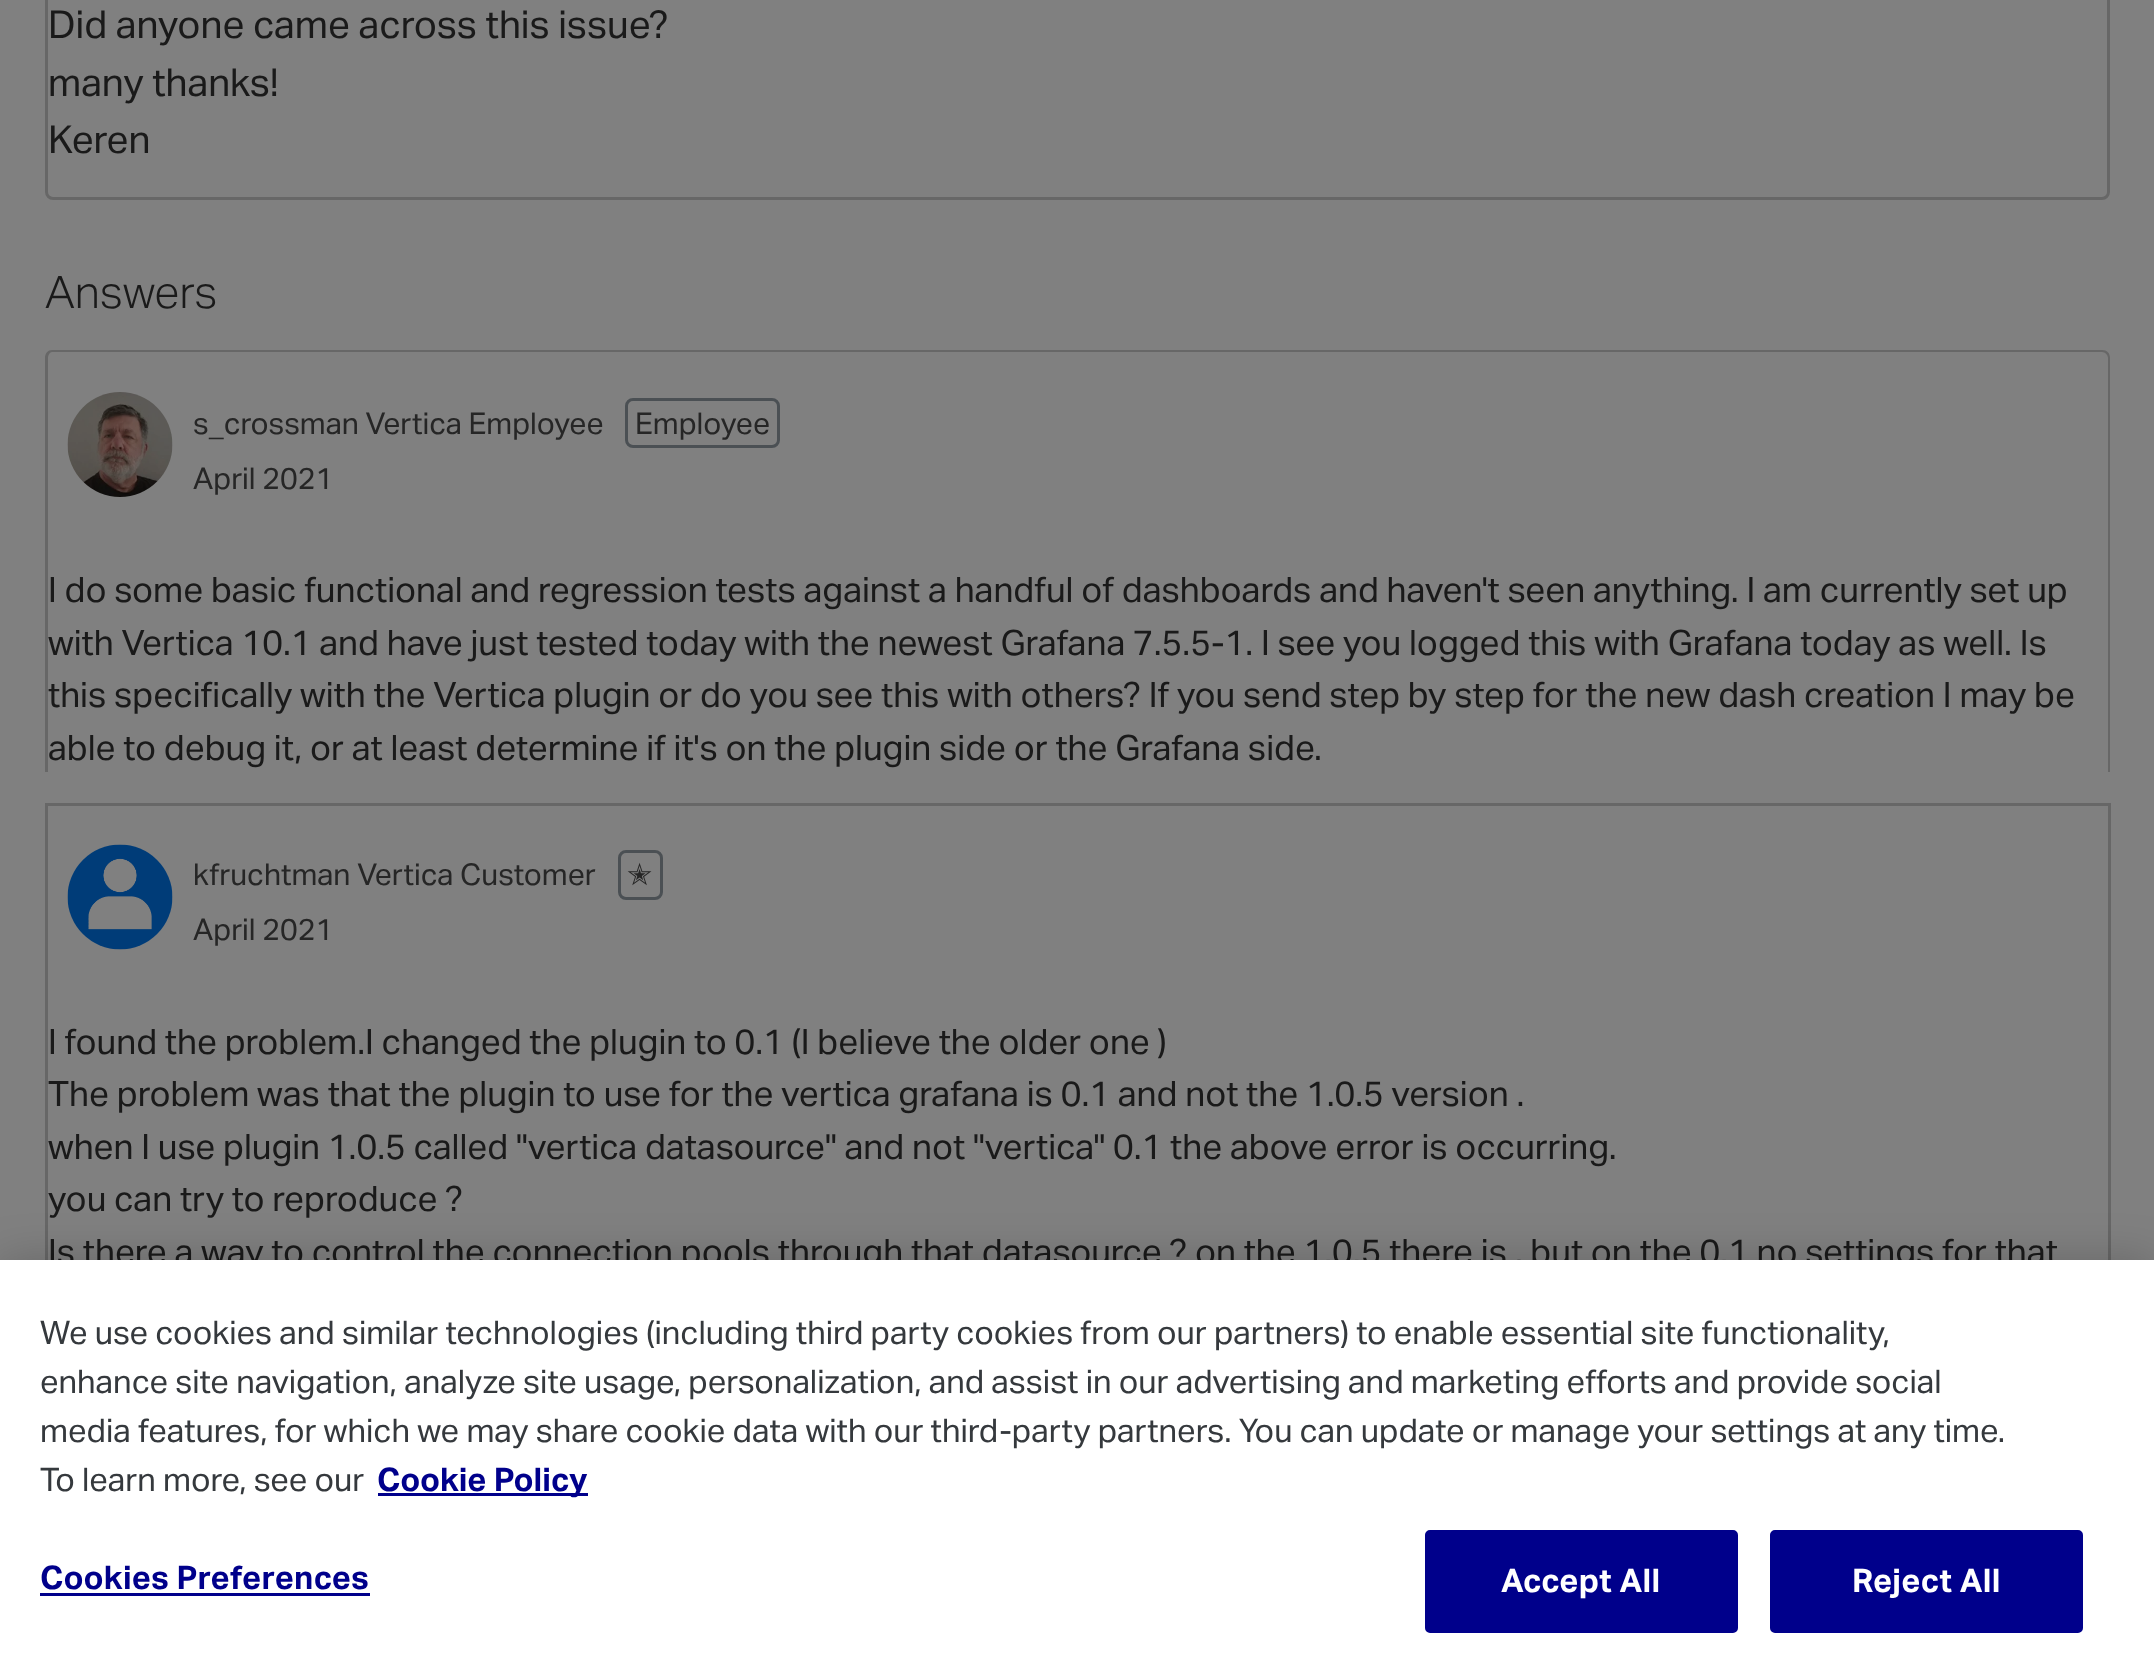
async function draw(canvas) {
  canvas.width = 2154;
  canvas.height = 1677;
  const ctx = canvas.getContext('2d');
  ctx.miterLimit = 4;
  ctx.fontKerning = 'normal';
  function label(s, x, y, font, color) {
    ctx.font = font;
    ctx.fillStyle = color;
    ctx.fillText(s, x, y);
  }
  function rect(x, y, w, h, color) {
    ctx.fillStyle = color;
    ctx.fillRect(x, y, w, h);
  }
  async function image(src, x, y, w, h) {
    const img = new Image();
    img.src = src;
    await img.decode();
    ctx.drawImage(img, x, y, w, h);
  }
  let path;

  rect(0, 0, 2154, 1677, '#808080');
  ctx.beginPath();
  ctx.roundRect(46.5, -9.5, 2062, 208, 6.5);
  ctx.strokeStyle = '#676767';
  ctx.lineWidth = 3;
  ctx.stroke();
  label('Did anyone came across this issue?', 48, 38, '38.5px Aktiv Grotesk', '#1a1a1a');
  label('many thanks!', 48, 96, '38.5px Aktiv Grotesk', '#1a1a1a');
  label('Keren', 48, 153, '38.5px Aktiv Grotesk', '#1a1a1a');
  label('Answers', 45, 308, '300 45px Aktiv Grotesk', '#1a1a1a');
  ctx.fillStyle = '#676767';
  path = new Path2D('M52 350H2102C2107 350 2110 353 2110 358V772H45V358C45 353 48 350 52 350ZM52 352H2102C2105 352 2108 355 2108 358V772H48V358C48 355 50 352 52 352Z');
  ctx.fill(path, 'evenodd');
  await image('assets/img1.png', 67, 392, 106, 105);
  label('s_crossman Vertica Employee', 193, 434, '30px Aktiv Grotesk', '#262626');
  ctx.beginPath();
  ctx.roundRect(626.5, 399.5, 152, 47, 6.5);
  ctx.strokeStyle = '#4b5054';
  ctx.stroke();
  label('Employee', 635, 434, '30px Aktiv Grotesk', '#262626');
  label('April 2021', 193, 489, '30px Aktiv Grotesk', '#262626');
  label('I do some basic functional and regression tests against a handful of dashboards and haven\'t seen anything. I am currently set up', 48, 602, '35px Aktiv Grotesk', '#1a1a1a');
  label('with Vertica 10.1 and have just tested today with the newest Grafana 7.5.5-1. I see you logged this with Grafana today as well. Is', 48, 655, '35px Aktiv Grotesk', '#1a1a1a');
  label('this specifically with the Vertica plugin or do you see this with others? If you send step by step for the new dash creation I may be', 48, 707, '35px Aktiv Grotesk', '#1a1a1a');
  label('able to debug it, or at least determine if it\'s on the plugin side or the Grafana side.', 48, 760, '35px Aktiv Grotesk', '#1a1a1a');
  rect(45, 803, 2065, 3, '#676767');
  rect(2108, 803, 3, 457, '#676767');
  rect(45, 803, 3, 457, '#676767');
  await image('assets/img2.png', 67, 844, 106, 106);
  label('kfruchtman Vertica Customer', 193, 885, '30px Aktiv Grotesk', '#262626');
  ctx.beginPath();
  ctx.roundRect(619.5, 851.5, 42, 47, 6.5);
  ctx.stroke();
  label('✭', 627, 885, '30px DejaVu Sans', '#262626');
  label('April 2021', 193, 940, '30px Aktiv Grotesk', '#262626');
  label('I found the problem.I changed the plugin to 0.1 (I believe the older one )', 48, 1054, '35px Aktiv Grotesk', '#1a1a1a');
  label('The problem was that the plugin to use for the vertica grafana is 0.1 and not the 1.0.5 version .', 48, 1106, '35px Aktiv Grotesk', '#1a1a1a');
  label('when I use plugin 1.0.5 called "vertica datasource" and not "vertica" 0.1 the above error is occurring.', 48, 1159, '35px Aktiv Grotesk', '#1a1a1a');
  label('you can try to reproduce ?', 48, 1211, '35px Aktiv Grotesk', '#1a1a1a');
  label('Is there a way to control the connection pools through that datasource ? on the 1.0.5 there is , but on the 0.1 no settings for that', 48, 1264, '35px Aktiv Grotesk', '#1a1a1a');
  ctx.fillStyle = '#00000033';
  ctx.filter = 'blur(22.5px)';
  ctx.beginPath();
  ctx.rect(0, 1260, 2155, 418);
  ctx.fill();
  ctx.filter = 'none';
  rect(0, 1260, 2154, 417, '#fff');
  label('We use cookies and similar technologies (including third party cookies from our partners) to enable essential site functionality,', 40, 1344, '32.52px Aktiv Grotesk', '#35393d');
  label('enhance site navigation, analyze site usage, personalization, and assist in our advertising and marketing efforts and provide social', 40, 1393, '32.52px Aktiv Grotesk', '#35393d');
  label('media features, for which we may share cookie data with our third-party partners. You can update or manage your settings at any time.', 40, 1442, '32.52px Aktiv Grotesk', '#35393d');
  label('To learn more, see our', 40, 1491, '32.52px Aktiv Grotesk', '#35393d');
  rect(378, 1493, 210, 3, '#00008b');
  label('Cookie Policy', 377, 1491, 'bold 32.52px Aktiv Grotesk', '#00008b');
  ctx.letterSpacing = '0.3px';
  label('Cookies Preferences', 40, 1589, 'bold 32.52px Aktiv Grotesk', '#00008b');
  rect(40, 1593, 330, 3, '#00008b');
  ctx.beginPath();
  ctx.roundRect(1426.5, 1531.5, 310, 100, 3.5);
  ctx.fill();
  ctx.strokeStyle = '#00008b';
  ctx.stroke();
  label('Accept All', 1501, 1592, 'bold 32.52px Aktiv Grotesk', '#fff');
  ctx.fillStyle = '#00008b';
  ctx.beginPath();
  ctx.roundRect(1771.5, 1531.5, 310, 100, 3.5);
  ctx.fill();
  ctx.stroke();
  label('Reject All', 1852, 1592, 'bold 32.52px Aktiv Grotesk', '#fff');
}

draw(document.querySelector('canvas'));
